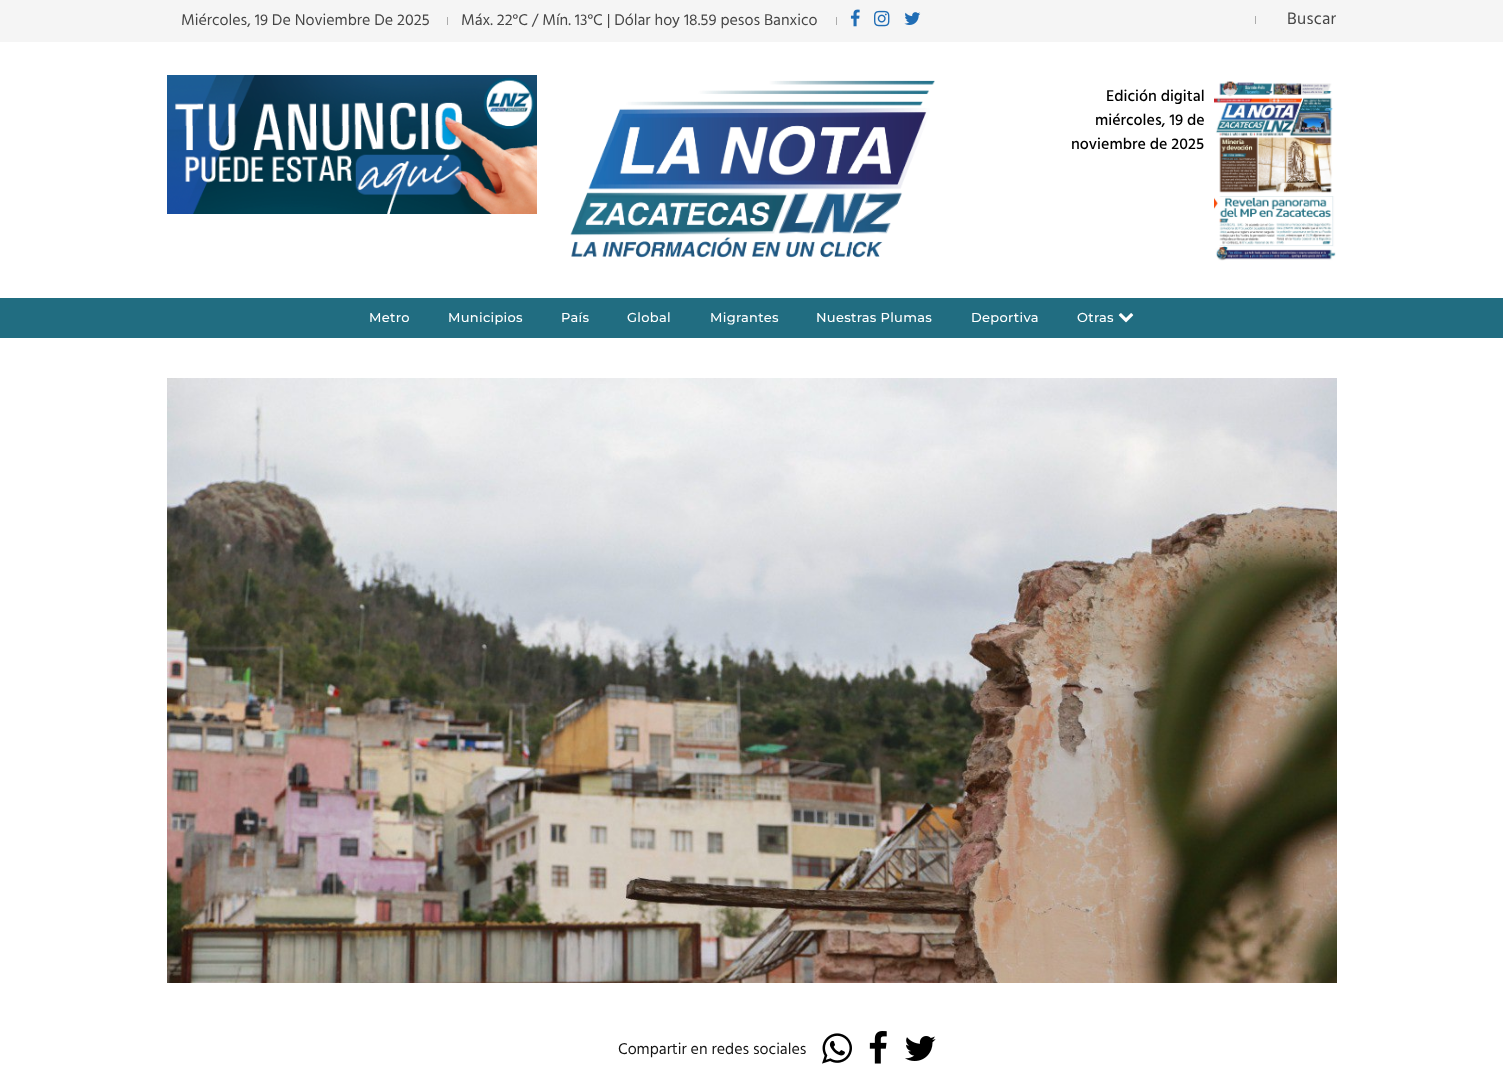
async function draw(canvas) {
  canvas.width = 1503;
  canvas.height = 1085;
  const ctx = canvas.getContext('2d');
  ctx.miterLimit = 4;
  ctx.fontKerning = 'normal';
  function label(s, x, y, font, color) {
    ctx.font = font;
    ctx.fillStyle = color;
    ctx.fillText(s, x, y);
  }
  function rect(x, y, w, h, color) {
    ctx.fillStyle = color;
    ctx.fillRect(x, y, w, h);
  }
  async function image(src, x, y, w, h) {
    const img = new Image();
    img.src = src;
    await img.decode();
    ctx.drawImage(img, x, y, w, h);
  }

  rect(0, 0, 1503, 1085, '#fff');
  rect(0, 0, 1503, 42, '#f5f5f5');
  label('Miércoles, 19 De Noviembre De 2025', 181, 25, '16px Hind', '#464646');
  rect(447, 17, 1, 8, '#acacac');
  label('Máx. 22°C / Mín. 13°C | Dólar hoy 18.59 pesos Banxico', 461, 25, '16px Hind', '#464646');
  rect(836, 17, 1, 8, '#acacac');
  await image('assets/img1.png', 850, 9, 10, 18);
  await image('assets/img2.png', 874, 10, 16, 17);
  await image('assets/img3.png', 904, 12, 17, 13);
  rect(1255, 16, 1, 8, '#acacac');
  ctx.letterSpacing = '0.25px';
  label('Buscar', 1287, 24, '17px Hind', '#464646');
  await image('assets/img4.png', 167, 75, 370, 139);
  await image('assets/img5.png', 570, 80, 365, 178);
  ctx.letterSpacing = '0px';
  label('Edición digital', 1106, 101, '500 16px Hind', '#000');
  label('miércoles, 19 de', 1095, 125, '500 16px Hind', '#000');
  label('noviembre de 2025', 1071, 149, '500 16px Hind', '#000');
  await image('assets/img6.png', 1214, 81, 122, 180);
  rect(0, 298, 1503, 40, '#216d81');
  ctx.letterSpacing = '0.3px';
  label('Metro', 369, 322, '500 13px Montserrat', '#fff');
  label('Municipios', 448, 322, '500 13px Montserrat', '#fff');
  label('País', 561, 322, '500 13px Montserrat', '#fff');
  label('Global', 627, 322, '500 13px Montserrat', '#fff');
  label('Migrantes', 710, 322, '500 13px Montserrat', '#fff');
  label('Nuestras Plumas', 816, 322, '500 13px Montserrat', '#fff');
  label('Deportiva', 971, 322, '500 13px Montserrat', '#fff');
  label('Otras', 1077, 322, '500 13px Montserrat', '#fff');
  await image('assets/img7.png', 1118, 313, 16, 10);
  await image('assets/img8.png', 167, 378, 1170, 605);
  ctx.letterSpacing = '0px';
  label('Compartir en redes sociales', 618, 1054, '16px Hind', '#151515');
  await image('assets/img9.png', 822, 1033, 30, 31);
  await image('assets/img10.png', 869, 1031, 18, 33);
  await image('assets/img11.png', 905, 1036, 31, 25);
}

draw(document.querySelector('canvas'));
